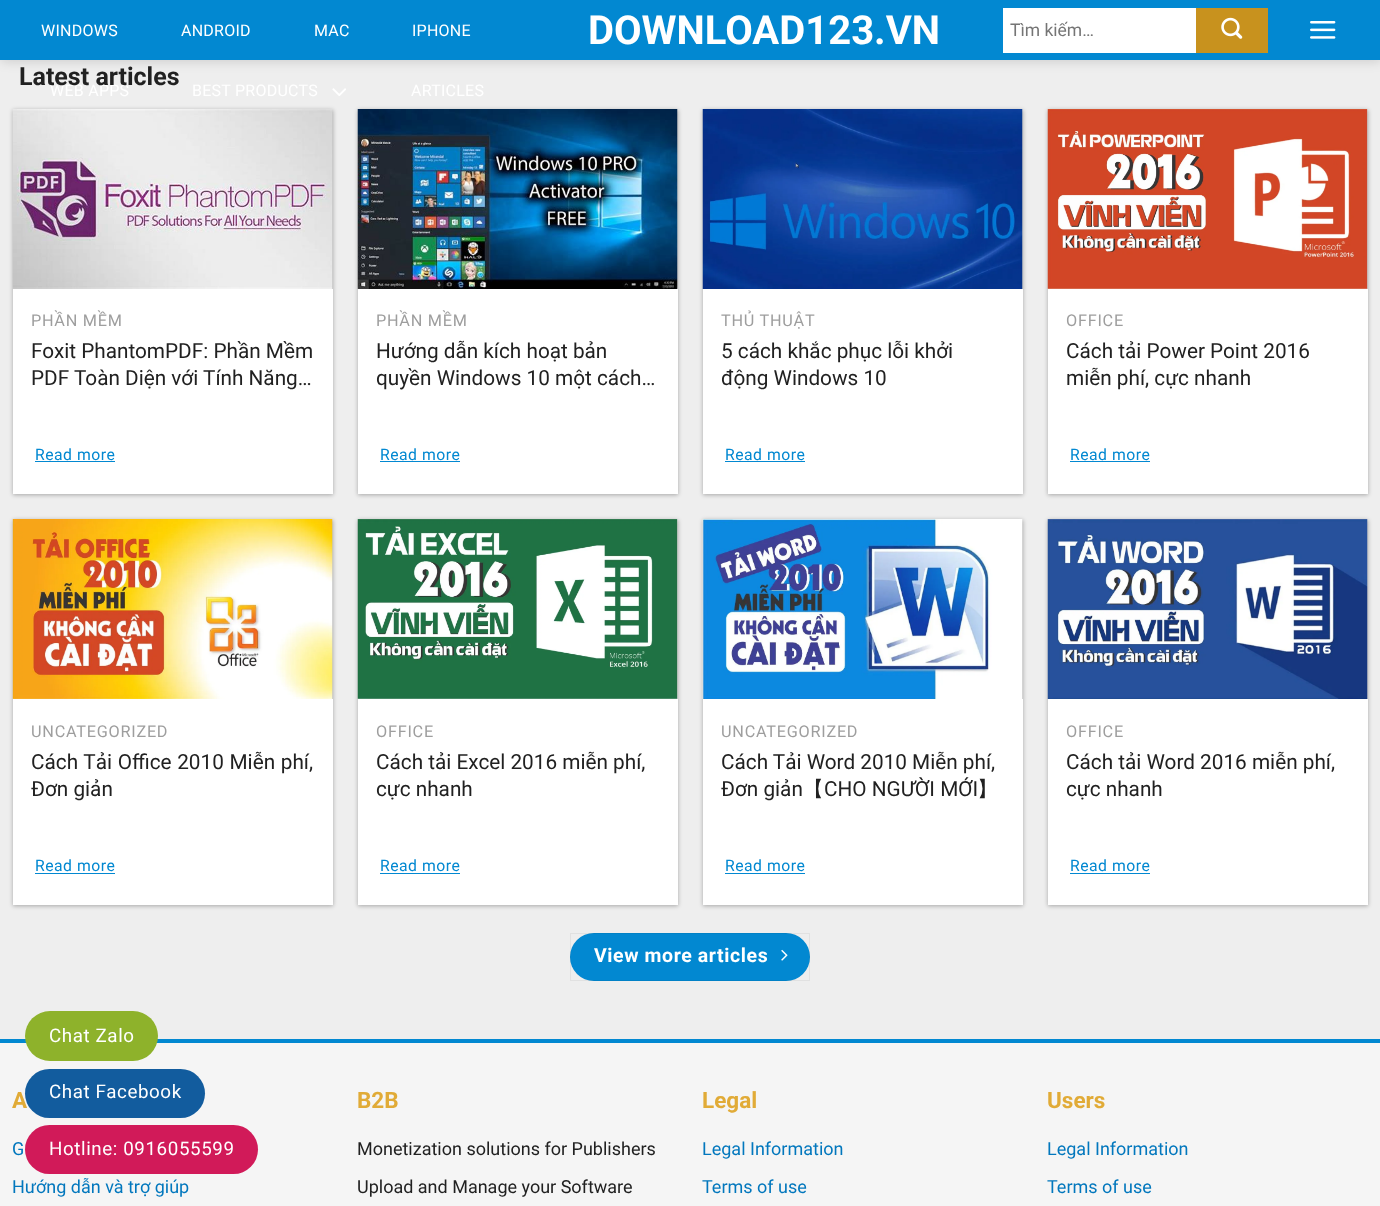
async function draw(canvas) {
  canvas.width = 1380;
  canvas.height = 1206;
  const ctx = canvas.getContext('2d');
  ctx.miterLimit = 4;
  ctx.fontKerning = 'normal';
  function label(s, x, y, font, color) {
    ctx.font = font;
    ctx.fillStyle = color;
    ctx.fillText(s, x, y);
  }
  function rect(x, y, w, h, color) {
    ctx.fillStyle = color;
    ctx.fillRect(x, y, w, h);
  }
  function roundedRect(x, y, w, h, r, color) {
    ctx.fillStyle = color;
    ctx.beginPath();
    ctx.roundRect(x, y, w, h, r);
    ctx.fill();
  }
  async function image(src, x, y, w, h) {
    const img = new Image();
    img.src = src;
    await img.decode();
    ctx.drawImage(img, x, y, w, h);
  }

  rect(0, 0, 1380, 1206, '#eee');
  ctx.fillStyle = '#00000026';
  ctx.filter = 'blur(6px)';
  ctx.beginPath();
  ctx.rect(1, 1, 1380, 60);
  ctx.fill();
  ctx.filter = 'none';
  rect(0, 0, 1380, 60, '#0288d1');
  ctx.letterSpacing = '0.25px';
  label('WINDOWS', 41, 36, '16px Roboto', '#fff');
  label('ANDROID', 181, 36, '16px Roboto', '#fff');
  label('MAC', 314, 36, '16px Roboto', '#fff');
  label('IPHONE', 412, 36, '16px Roboto', '#fff');
  label('WEB APPS', 50, 96, '16px Roboto', '#fff');
  label('BEST PRODUCTS', 192, 96, '16px Roboto', '#fff');
  await image('assets/img1.png', 332, 88, 14, 8);
  label('ARTICLES', 411, 96, '16px Roboto', '#fff');
  ctx.letterSpacing = '0px';
  label('DOWNLOAD123.VN', 588, 44, 'bold 40px Roboto', '#fff');
  rect(1003, 8, 193, 45, '#fff');
  label('Tìm kiếm…', 1010, 36, '17.5px Roboto', '#757575');
  rect(1196, 8, 72, 45, '#c8921e');
  await image('assets/img2.png', 1221, 17, 22, 22);
  await image('assets/img3.png', 1310, 21, 26, 18);
  label('Latest articles', 19, 85, 'bold 25px Roboto', '#212121');
  ctx.fillStyle = '#0000004d';
  ctx.filter = 'blur(2px)';
  ctx.beginPath();
  ctx.rect(13, 110, 320, 385);
  ctx.fill();
  ctx.filter = 'none';
  await image('assets/img4.png', 12, 109, 321, 180);
  rect(13, 289, 320, 205, '#fff');
  ctx.letterSpacing = '0.75px';
  label('PHẦN MỀM', 31, 326, '16.25px Roboto', '#9e9e9e');
  ctx.letterSpacing = '0px';
  label('Foxit PhantomPDF: Phần Mềm', 31, 358, '20.75px Roboto', '#212121');
  label('PDF Toàn Diện với Tính Năng…', 31, 385, '20.75px Roboto', '#212121');
  ctx.letterSpacing = '0.5px';
  label('Read more', 35, 460, '15.75px Roboto', '#0288d1');
  rect(35, 461, 80, 1, '#0288d1');
  ctx.fillStyle = '#0000004d';
  ctx.filter = 'blur(2px)';
  ctx.beginPath();
  ctx.rect(358, 110, 320, 385);
  ctx.fill();
  ctx.filter = 'none';
  await image('assets/img5.png', 357, 109, 321, 180);
  rect(358, 289, 320, 205, '#fff');
  ctx.letterSpacing = '0.75px';
  label('PHẦN MỀM', 376, 326, '16.25px Roboto', '#9e9e9e');
  ctx.letterSpacing = '0px';
  label('Hướng dẫn kích hoạt bản', 376, 358, '20.75px Roboto', '#212121');
  label('quyền Windows 10 một cách…', 376, 385, '20.75px Roboto', '#212121');
  ctx.letterSpacing = '0.5px';
  label('Read more', 380, 460, '15.75px Roboto', '#0288d1');
  rect(380, 461, 80, 1, '#0288d1');
  ctx.fillStyle = '#0000004d';
  ctx.filter = 'blur(2px)';
  ctx.beginPath();
  ctx.rect(703, 110, 320, 385);
  ctx.fill();
  ctx.filter = 'none';
  await image('assets/img6.png', 702, 109, 321, 180);
  rect(703, 289, 320, 205, '#fff');
  ctx.letterSpacing = '0.75px';
  label('THỦ THUẬT', 721, 326, '16.25px Roboto', '#9e9e9e');
  ctx.letterSpacing = '0px';
  label('5 cách khắc phục lỗi khởi', 721, 358, '20.75px Roboto', '#212121');
  label('động Windows 10', 721, 385, '20.75px Roboto', '#212121');
  ctx.letterSpacing = '0.5px';
  label('Read more', 725, 460, '15.75px Roboto', '#0288d1');
  rect(725, 461, 80, 1, '#0288d1');
  ctx.fillStyle = '#0000004d';
  ctx.filter = 'blur(2px)';
  ctx.beginPath();
  ctx.rect(1048, 110, 320, 385);
  ctx.fill();
  ctx.filter = 'none';
  await image('assets/img7.png', 1047, 109, 321, 180);
  rect(1048, 289, 320, 205, '#fff');
  ctx.letterSpacing = '0.75px';
  label('OFFICE', 1066, 326, '16.25px Roboto', '#9e9e9e');
  ctx.letterSpacing = '0px';
  label('Cách tải Power Point 2016', 1066, 358, '20.75px Roboto', '#212121');
  label('miễn phí, cực nhanh', 1066, 385, '20.75px Roboto', '#212121');
  ctx.letterSpacing = '0.5px';
  label('Read more', 1070, 460, '15.75px Roboto', '#0288d1');
  rect(1070, 461, 80, 1, '#0288d1');
  ctx.fillStyle = '#0000004d';
  ctx.filter = 'blur(2px)';
  ctx.beginPath();
  ctx.rect(13, 520, 320, 386);
  ctx.fill();
  ctx.filter = 'none';
  await image('assets/img8.png', 12, 519, 321, 180);
  rect(13, 699, 320, 206, '#fff');
  ctx.letterSpacing = '0.75px';
  label('UNCATEGORIZED', 31, 737, '16.25px Roboto', '#9e9e9e');
  ctx.letterSpacing = '0px';
  ctx.wordSpacing = '0.5px';
  label('Cách Tải Office 2010 Miễn phí,', 31, 769, '20.75px Roboto', '#212121');
  ctx.wordSpacing = '0px';
  label('Đơn giản', 31, 796, '20.75px Roboto', '#212121');
  ctx.letterSpacing = '0.5px';
  label('Read more', 35, 871, '15.75px Roboto', '#0288d1');
  rect(35, 873, 80, 1, '#0288d1');
  ctx.fillStyle = '#0000004d';
  ctx.filter = 'blur(2px)';
  ctx.beginPath();
  ctx.rect(358, 520, 320, 386);
  ctx.fill();
  ctx.filter = 'none';
  await image('assets/img9.png', 357, 519, 321, 180);
  rect(358, 699, 320, 206, '#fff');
  ctx.letterSpacing = '0.75px';
  label('OFFICE', 376, 737, '16.25px Roboto', '#9e9e9e');
  ctx.letterSpacing = '0px';
  label('Cách tải Excel 2016 miễn phí,', 376, 769, '20.75px Roboto', '#212121');
  label('cực nhanh', 376, 796, '20.75px Roboto', '#212121');
  ctx.letterSpacing = '0.5px';
  label('Read more', 380, 871, '15.75px Roboto', '#0288d1');
  rect(380, 873, 80, 1, '#0288d1');
  ctx.fillStyle = '#0000004d';
  ctx.filter = 'blur(2px)';
  ctx.beginPath();
  ctx.rect(703, 520, 320, 386);
  ctx.fill();
  ctx.filter = 'none';
  await image('assets/img10.png', 702, 519, 321, 180);
  rect(703, 699, 320, 206, '#fff');
  ctx.letterSpacing = '0.75px';
  label('UNCATEGORIZED', 721, 737, '16.25px Roboto', '#9e9e9e');
  ctx.letterSpacing = '0px';
  label('Cách Tải Word 2010 Miễn phí,', 721, 769, '20.75px Roboto', '#212121');
  label('Đơn giản', 721, 796, '20.75px Roboto', '#212121');
  label('【', 803, 796, '500 20.75px WenQuanYi Zen Hei', '#212121');
  label('CHO NGƯỜI MỚI', 824, 796, '20.75px Roboto', '#212121');
  label('】', 977, 796, '500 20.75px WenQuanYi Zen Hei', '#212121');
  ctx.letterSpacing = '0.5px';
  label('Read more', 725, 871, '15.75px Roboto', '#0288d1');
  rect(725, 873, 80, 1, '#0288d1');
  ctx.fillStyle = '#0000004d';
  ctx.filter = 'blur(2px)';
  ctx.beginPath();
  ctx.rect(1048, 520, 320, 386);
  ctx.fill();
  ctx.filter = 'none';
  await image('assets/img11.png', 1047, 519, 321, 180);
  rect(1048, 699, 320, 206, '#fff');
  ctx.letterSpacing = '0.75px';
  label('OFFICE', 1066, 737, '16.25px Roboto', '#9e9e9e');
  ctx.letterSpacing = '0px';
  label('Cách tải Word 2016 miễn phí,', 1066, 769, '20.75px Roboto', '#212121');
  label('cực nhanh', 1066, 796, '20.75px Roboto', '#212121');
  ctx.letterSpacing = '0.5px';
  label('Read more', 1070, 871, '15.75px Roboto', '#0288d1');
  rect(1070, 873, 80, 1, '#0288d1');
  roundedRect(570, 933, 240, 48, 24, '#0288d1');
  ctx.strokeStyle = '#0000000d';
  ctx.strokeRect(570.5, 933.5, 239, 47);
  ctx.letterSpacing = '0.6px';
  label('View more articles', 594, 962, 'bold 19.5px Roboto', '#fff');
  await image('assets/img12.png', 781, 949, 7, 12);
  rect(0, 1043, 1380, 163, '#f5f5f5');
  rect(0, 1039, 1380, 4, '#0288d1');
  ctx.letterSpacing = '0px';
  label('A', 12, 1108, 'bold 22.5px Roboto', '#e1ab37');
  label('G', 12, 1155, '18px Roboto', '#0277bd');
  label('Hướng dẫn và trợ giúp', 12, 1193, '18px Roboto', '#0277bd');
  label('B2B', 357, 1108, 'bold 22.5px Roboto', '#e1ab37');
  label('Monetization solutions for Publishers', 357, 1155, '18px Roboto', '#212121');
  label('Upload and Manage your Software', 357, 1193, '18px Roboto', '#212121');
  label('Legal', 702, 1108, 'bold 22.5px Roboto', '#e1ab37');
  label('Legal Information', 702, 1155, '18px Roboto', '#0277bd');
  label('Terms of use', 702, 1193, '18px Roboto', '#0277bd');
  label('Users', 1047, 1108, 'bold 22.5px Roboto', '#e1ab37');
  label('Legal Information', 1047, 1155, '18px Roboto', '#0277bd');
  label('Terms of use', 1047, 1193, '18px Roboto', '#0277bd');
  roundedRect(25, 1011, 133, 50, 25, '#8eb22b');
  ctx.letterSpacing = '0.6px';
  label('Chat Zalo', 49, 1042, '18.75px Roboto', '#fff');
  roundedRect(25, 1069, 180, 49, 24.5, '#125c9e');
  label('Chat Facebook', 49, 1098, '18.75px Roboto', '#fff');
  roundedRect(25, 1125, 233, 49, 24.5, '#d11a59');
  label('Hotline: 0916055599', 49, 1155, '18.75px Roboto', '#fff');
}

draw(document.querySelector('canvas'));
